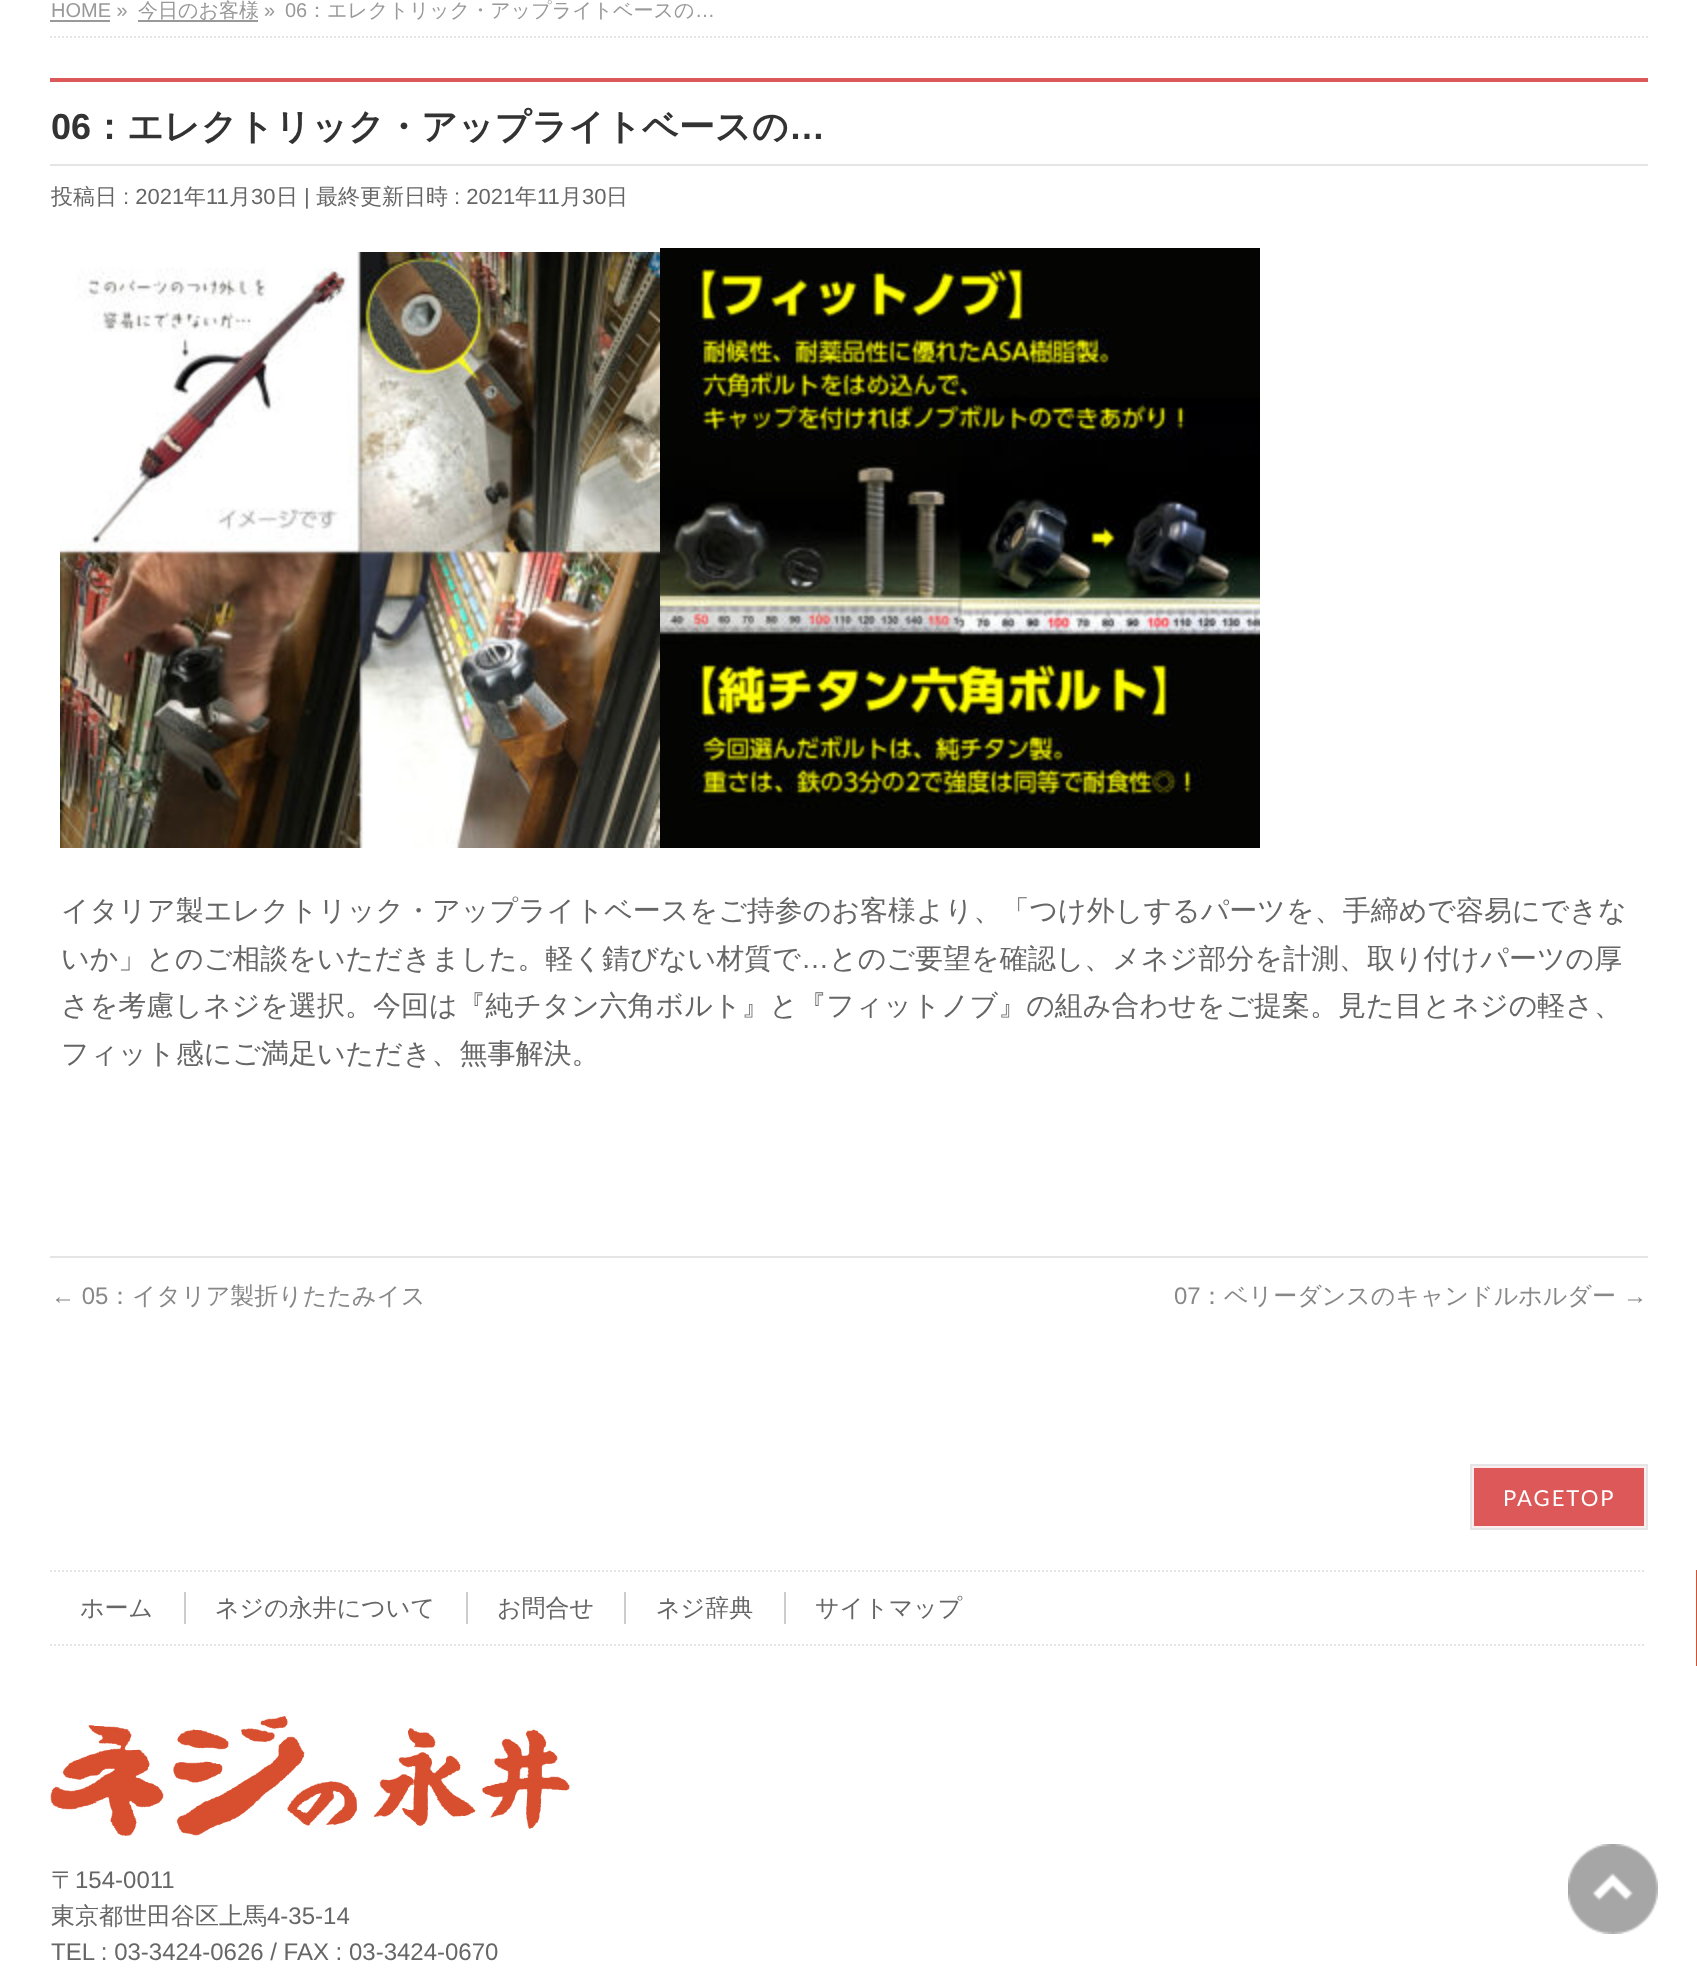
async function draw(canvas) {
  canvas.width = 1697;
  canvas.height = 1974;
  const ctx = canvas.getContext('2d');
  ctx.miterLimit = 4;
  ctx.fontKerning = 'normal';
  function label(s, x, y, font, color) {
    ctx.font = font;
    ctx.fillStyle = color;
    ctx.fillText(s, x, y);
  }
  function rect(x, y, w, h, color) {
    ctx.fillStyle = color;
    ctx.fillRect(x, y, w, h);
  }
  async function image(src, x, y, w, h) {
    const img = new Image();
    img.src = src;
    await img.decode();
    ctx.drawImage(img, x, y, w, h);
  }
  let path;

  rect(0, 0, 1697, 1974, '#d84f2f');
  rect(0, 0, 1697, 1570, '#fff');
  path = new Path2D('M50 37H1648');
  ctx.strokeStyle = '#e5e5e5';
  ctx.lineWidth = 2;
  ctx.setLineDash([2, 2]);
  ctx.stroke(path);
  label('HOME »', 51, 17, '20px Liberation Sans', '#999');
  rect(50, 20, 60, 2, '#999');
  rect(138, 20, 120, 2, '#999');
  label('今日のお客様', 138, 17, '500 20px WenQuanYi Zen Hei', '#999');
  label('»', 264, 17, '20px Liberation Sans', '#999');
  label('06', 285, 17, '20px Liberation Sans', '#999');
  label('：エレクトリック・アップライトベースの', 307, 17, '500 20px WenQuanYi Zen Hei', '#999');
  label('…', 695, 17, '20px Liberation Sans', '#999');
  rect(50, 78, 1598, 4, '#dd5858');
  rect(50, 164, 1598, 2, '#e5e5e5');
  label('06', 51, 139, 'bold 36px Liberation Sans', '#333');
  label('：エレクトリック・アップライトベースの', 91, 139, 'bold 36px WenQuanYi Zen Hei', '#333');
  label('…', 789, 139, 'bold 36px Liberation Sans', '#333');
  label('投稿日', 51, 204, '500 22px WenQuanYi Zen Hei', '#666');
  label(': 2021', 123, 204, '22px Liberation Sans', '#666');
  label('年', 184, 204, '500 22px WenQuanYi Zen Hei', '#666');
  label('11', 206, 204, '22px Liberation Sans', '#666');
  label('月', 229, 204, '500 22px WenQuanYi Zen Hei', '#666');
  label('30', 251, 204, '22px Liberation Sans', '#666');
  label('日', 276, 204, '500 22px WenQuanYi Zen Hei', '#666');
  label('|', 304, 204, '22px Liberation Sans', '#666');
  label('最終更新日時', 316, 204, '500 22px WenQuanYi Zen Hei', '#666');
  label(': 2021', 454, 204, '22px Liberation Sans', '#666');
  label('年', 515, 204, '500 22px WenQuanYi Zen Hei', '#666');
  label('11', 537, 204, '22px Liberation Sans', '#666');
  label('月', 560, 204, '500 22px WenQuanYi Zen Hei', '#666');
  label('30', 582, 204, '22px Liberation Sans', '#666');
  label('日', 606, 204, '500 22px WenQuanYi Zen Hei', '#666');
  await image('assets/img1.png', 60, 252, 600, 596);
  await image('assets/img2.png', 660, 248, 600, 600);
  label('イタリア製エレクトリック・アップライトベースをご持参のお客様より、「つけ外しするパーツを、手締めで容易にできな', 61, 920, '500 28px WenQuanYi Zen Hei', '#666');
  label('いか」とのご相談をいただきました。軽く錆びない材質で', 61, 968, '500 28px WenQuanYi Zen Hei', '#666');
  label('…', 801, 968, '28px Liberation Sans', '#666');
  label('とのご要望を確認し、メネジ部分を計測、取り付けパーツの厚', 829, 968, '500 28px WenQuanYi Zen Hei', '#666');
  label('さを考慮しネジを選択。今回は『純チタン六角ボルト』と『フィットノブ』の組み合わせをご提案。見た目とネジの軽さ、', 61, 1015, '500 28px WenQuanYi Zen Hei', '#666');
  label('フィット感にご満足いただき、無事解決。', 61, 1063, '500 28px WenQuanYi Zen Hei', '#666');
  rect(50, 1256, 1598, 2, '#e5e5e5');
  label('← 05', 51, 1304, '24px Liberation Sans', '#888');
  label('：イタリア製折りたたみイス', 108, 1304, '500 24px WenQuanYi Zen Hei', '#888');
  label('07', 1174, 1304, '24px Liberation Sans', '#888');
  label('：ベリーダンスのキャンドルホルダー', 1200, 1304, '500 24px WenQuanYi Zen Hei', '#888');
  label('→', 1623, 1304, '24px Liberation Sans', '#888');
  ctx.fillStyle = '#dd5858';
  ctx.beginPath();
  ctx.rect(1473, 1467, 172, 60);
  ctx.fill();
  ctx.strokeStyle = '#fceeee';
  ctx.setLineDash([]);
  ctx.stroke();
  ctx.strokeStyle = '#e5e5e5';
  ctx.strokeRect(1471, 1465, 176, 64);
  ctx.letterSpacing = '2px';
  label('PAGETOP', 1503, 1506, '22px Lato', '#fff');
  rect(0, 1570, 1696, 96, '#fff');
  path = new Path2D('M50 1571H1646');
  ctx.setLineDash([2, 2]);
  ctx.stroke(path);
  path = new Path2D('M50 1645H1646');
  ctx.stroke(path);
  rect(184, 1592, 2, 32, '#ccc');
  ctx.letterSpacing = '0px';
  label('ホーム', 80, 1616, '500 24px WenQuanYi Zen Hei', '#666');
  rect(466, 1592, 2, 32, '#ccc');
  label('ネジの永井について', 215, 1616, '500 24px WenQuanYi Zen Hei', '#666');
  rect(624, 1592, 2, 32, '#ccc');
  label('お問合せ', 497, 1616, '500 24px WenQuanYi Zen Hei', '#666');
  rect(784, 1592, 2, 32, '#ccc');
  label('ネジ辞典', 656, 1616, '500 24px WenQuanYi Zen Hei', '#666');
  label('サイトマップ', 815, 1616, '500 24px WenQuanYi Zen Hei', '#666');
  rect(0, 1666, 1697, 308, '#fff');
  await image('assets/img3.png', 50, 1716, 520, 120);
  label('〒', 51, 1888, '500 24px WenQuanYi Zen Hei', '#666');
  label('154-0011', 75, 1888, '24px Liberation Sans', '#666');
  label('東京都世田谷区上馬', 51, 1924, '500 24px WenQuanYi Zen Hei', '#666');
  label('4-35-14', 267, 1924, '24px Liberation Sans', '#666');
  label('TEL : 03-3424-0626 / FAX : 03-3424-0670', 51, 1960, '24px Liberation Sans', '#666');
  await image('assets/img4.png', 1568, 1844, 90, 90);
}

draw(document.querySelector('canvas'));
